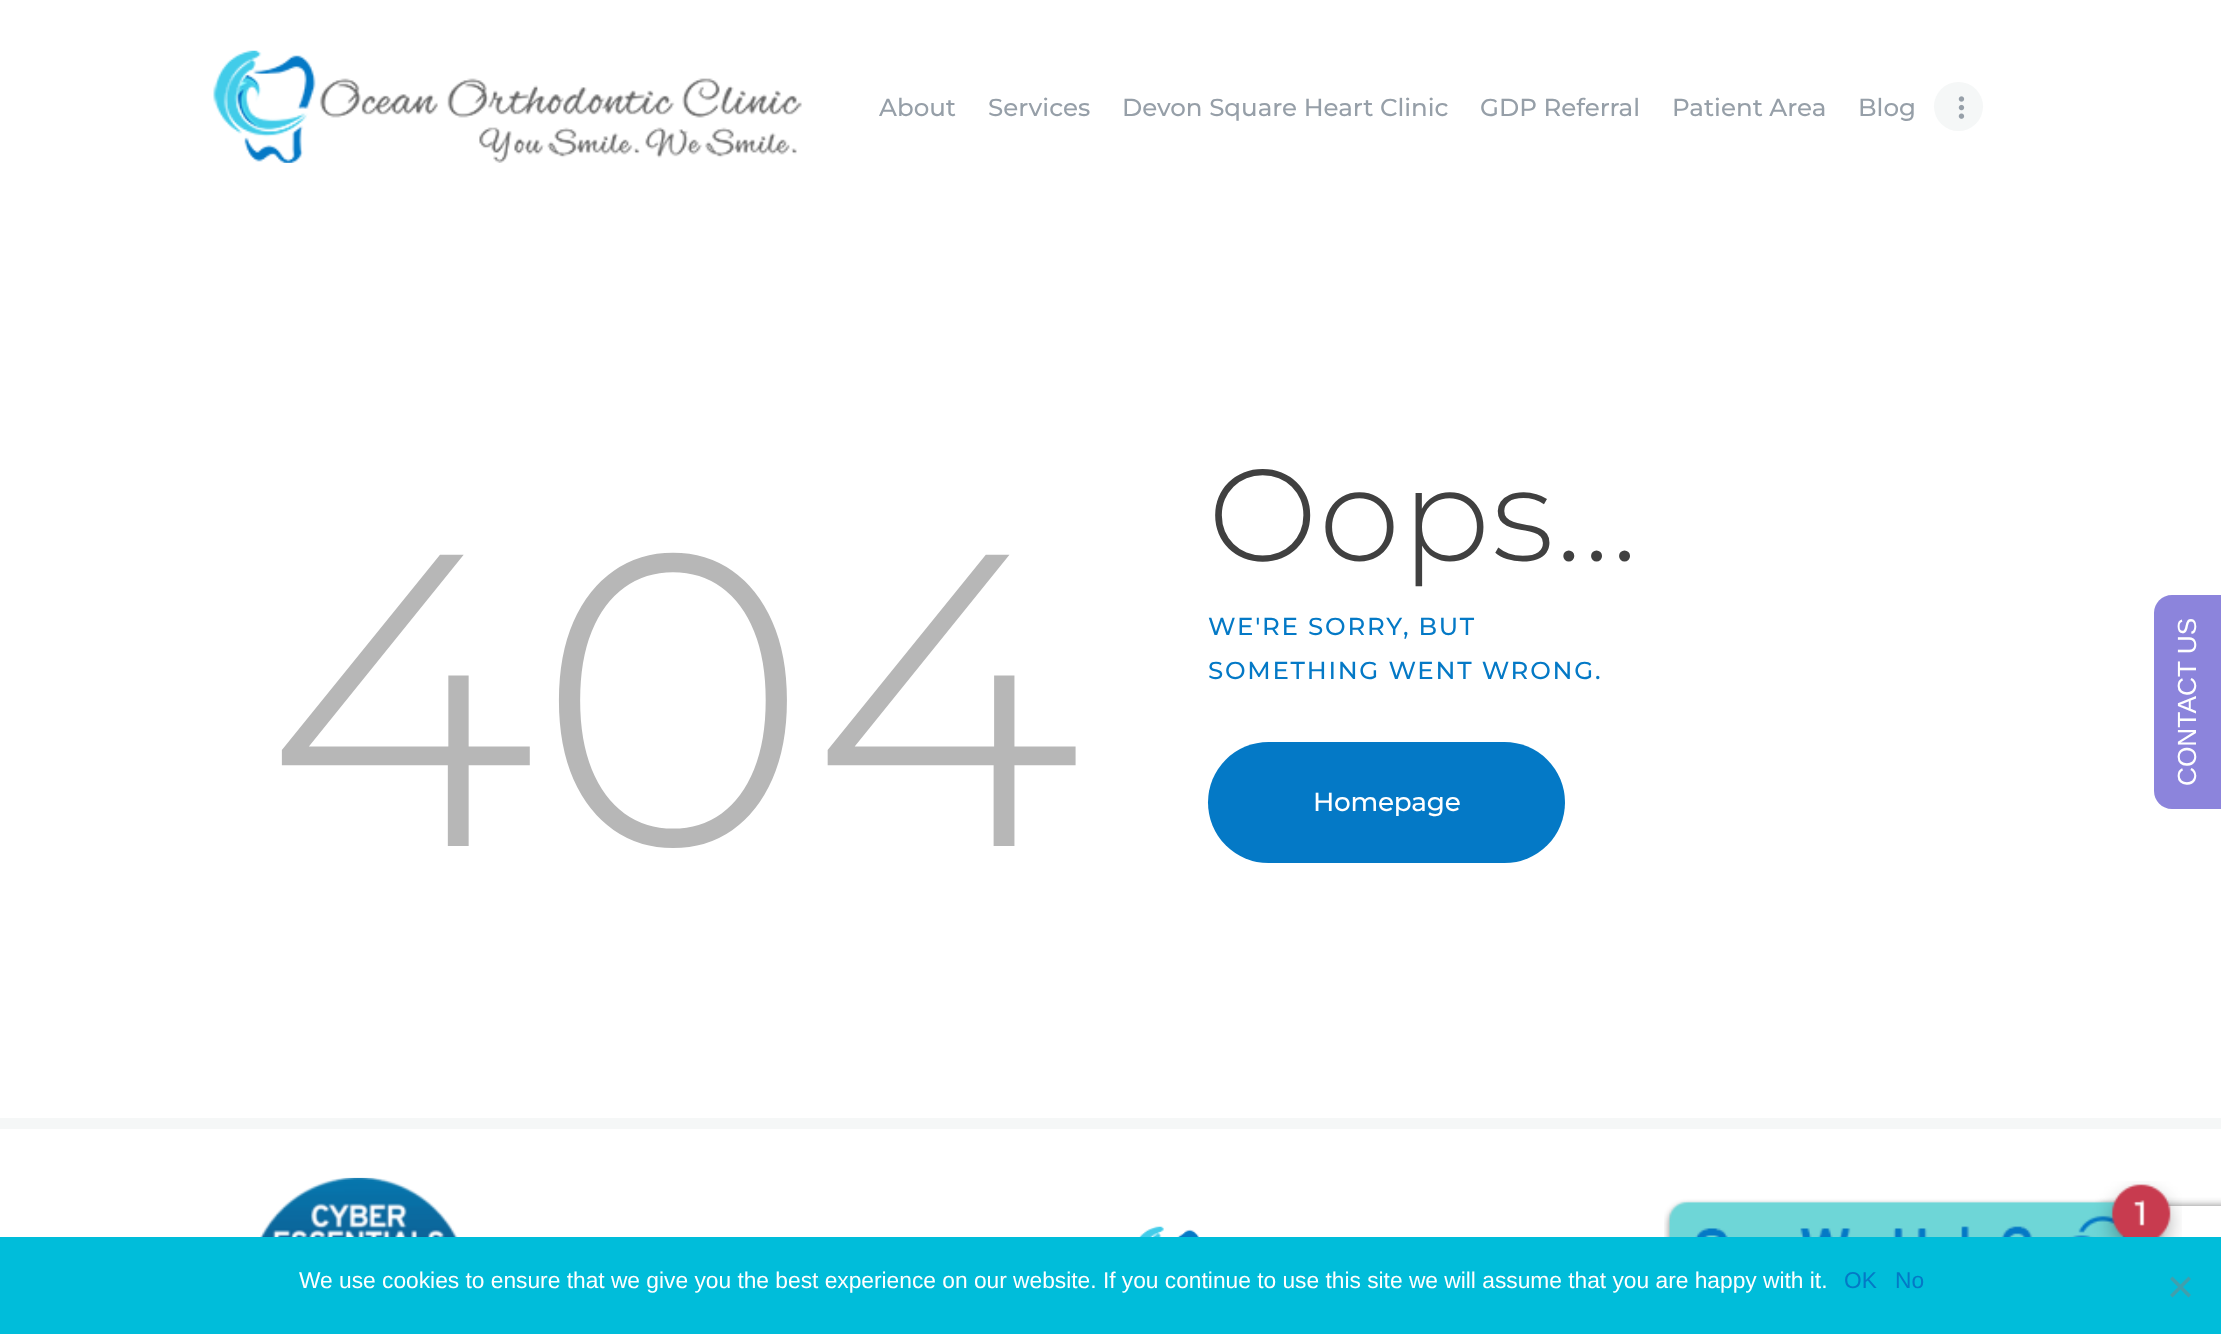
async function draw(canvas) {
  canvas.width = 2221;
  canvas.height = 1334;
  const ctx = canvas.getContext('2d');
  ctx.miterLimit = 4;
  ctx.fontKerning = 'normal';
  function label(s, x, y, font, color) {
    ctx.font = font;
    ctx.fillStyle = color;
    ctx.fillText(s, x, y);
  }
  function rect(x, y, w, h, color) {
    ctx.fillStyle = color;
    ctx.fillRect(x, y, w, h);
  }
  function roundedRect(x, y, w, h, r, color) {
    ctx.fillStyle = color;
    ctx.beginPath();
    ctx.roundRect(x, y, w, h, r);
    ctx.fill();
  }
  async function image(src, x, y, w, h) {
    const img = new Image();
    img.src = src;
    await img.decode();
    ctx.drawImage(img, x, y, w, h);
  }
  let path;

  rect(0, 0, 2221, 1334, '#fff');
  await image('assets/img1.png', 213, 50, 589, 113);
  label('About', 879, 116, '500 24.5px Montserrat', '#969fa8');
  label('Services', 988, 116, '500 24.5px Montserrat', '#969fa8');
  label('Devon Square Heart Clinic', 1122, 116, '500 24.5px Montserrat', '#969fa8');
  label('GDP Referral', 1480, 116, '500 24.5px Montserrat', '#969fa8');
  label('Patient Area', 1672, 116, '500 24.5px Montserrat', '#969fa8');
  label('Blog', 1858, 116, '500 24.5px Montserrat', '#969fa8');
  ctx.fillStyle = '#f5f7f7';
  ctx.beginPath();
  ctx.arc(1958.5, 106.5, 24.5, 0, 2 * Math.PI);
  ctx.fill();
  await image('assets/img2.png', 1958, 96, 7, 23);
  label('404', 264, 846, '300 416px Montserrat', '#b7b7b7');
  ctx.letterSpacing = '1.75px';
  label('Oops...', 1208, 561, '300 130.5px Montserrat', '#404040');
  label('WE\'RE SORRY, BUT', 1208, 635, '500 24.5px Montserrat', '#0479c6');
  label('SOMETHING WENT WRONG.', 1208, 679, '500 24.5px Montserrat', '#0479c6');
  roundedRect(1208, 742, 357, 121, 60.5, '#0479c6');
  ctx.letterSpacing = '-0.25px';
  label('Homepage', 1313, 811, '500 26.25px Montserrat', '#fff');
  rect(0, 1118, 2221, 11, '#f5f7f7');
  await image('assets/img3.png', 260, 1177, 198, 60);
  await image('assets/img4.png', 1139, 1226, 60, 11);
  ctx.fillStyle = '#8c84dc';
  path = new Path2D('M2154 791V613C2154 603 2162 595 2172 595H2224V809H2172C2162 809 2154 801 2154 791Z');
  ctx.fill(path);
  ctx.letterSpacing = '0px';
  ctx.font = '26.25px Liberation Sans';
  ctx.fillStyle = '#fff';
  ctx.save();
  ctx.translate(2196, 786);
  ctx.rotate(-90 * Math.PI / 180);
  ctx.fillText('CONTACT US', 0, 0);
  ctx.restore();
  ctx.save();
  ctx.beginPath();
  ctx.rect(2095, 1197, 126, 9);
  ctx.clip();
  ctx.fillStyle = '#808080';
  ctx.filter = 'blur(4.5px)';
  ctx.beginPath();
  ctx.roundRect(2100, 1206, 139, 105, 4);
  ctx.fill();
  ctx.filter = 'none';
  ctx.restore();
  await image('assets/img5.png', 1664, 1181, 518, 56);
  rect(0, 1237, 2221, 97, '#00bdda');
  label('We use cookies to ensure that we give you the best experience on our website. If you continue to use this site we will assume that you are happy with it.', 299, 1288, '22.75px Liberation Sans', '#fff');
  label('OK', 1844, 1288, '22.75px Liberation Sans', '#0479c6');
  label('No', 1895, 1288, '22.75px Liberation Sans', '#0479c6');
  ctx.fillStyle = '#409fad';
  path = new Path2D('M2188.5 1276.5L2191 1279L2172.5 1297.5L2170 1295Z');
  ctx.fill(path);
  path = new Path2D('M2170 1279L2172.5 1276.5L2191 1295L2188.5 1297.5Z');
  ctx.fill(path);
}

draw(document.querySelector('canvas'));
